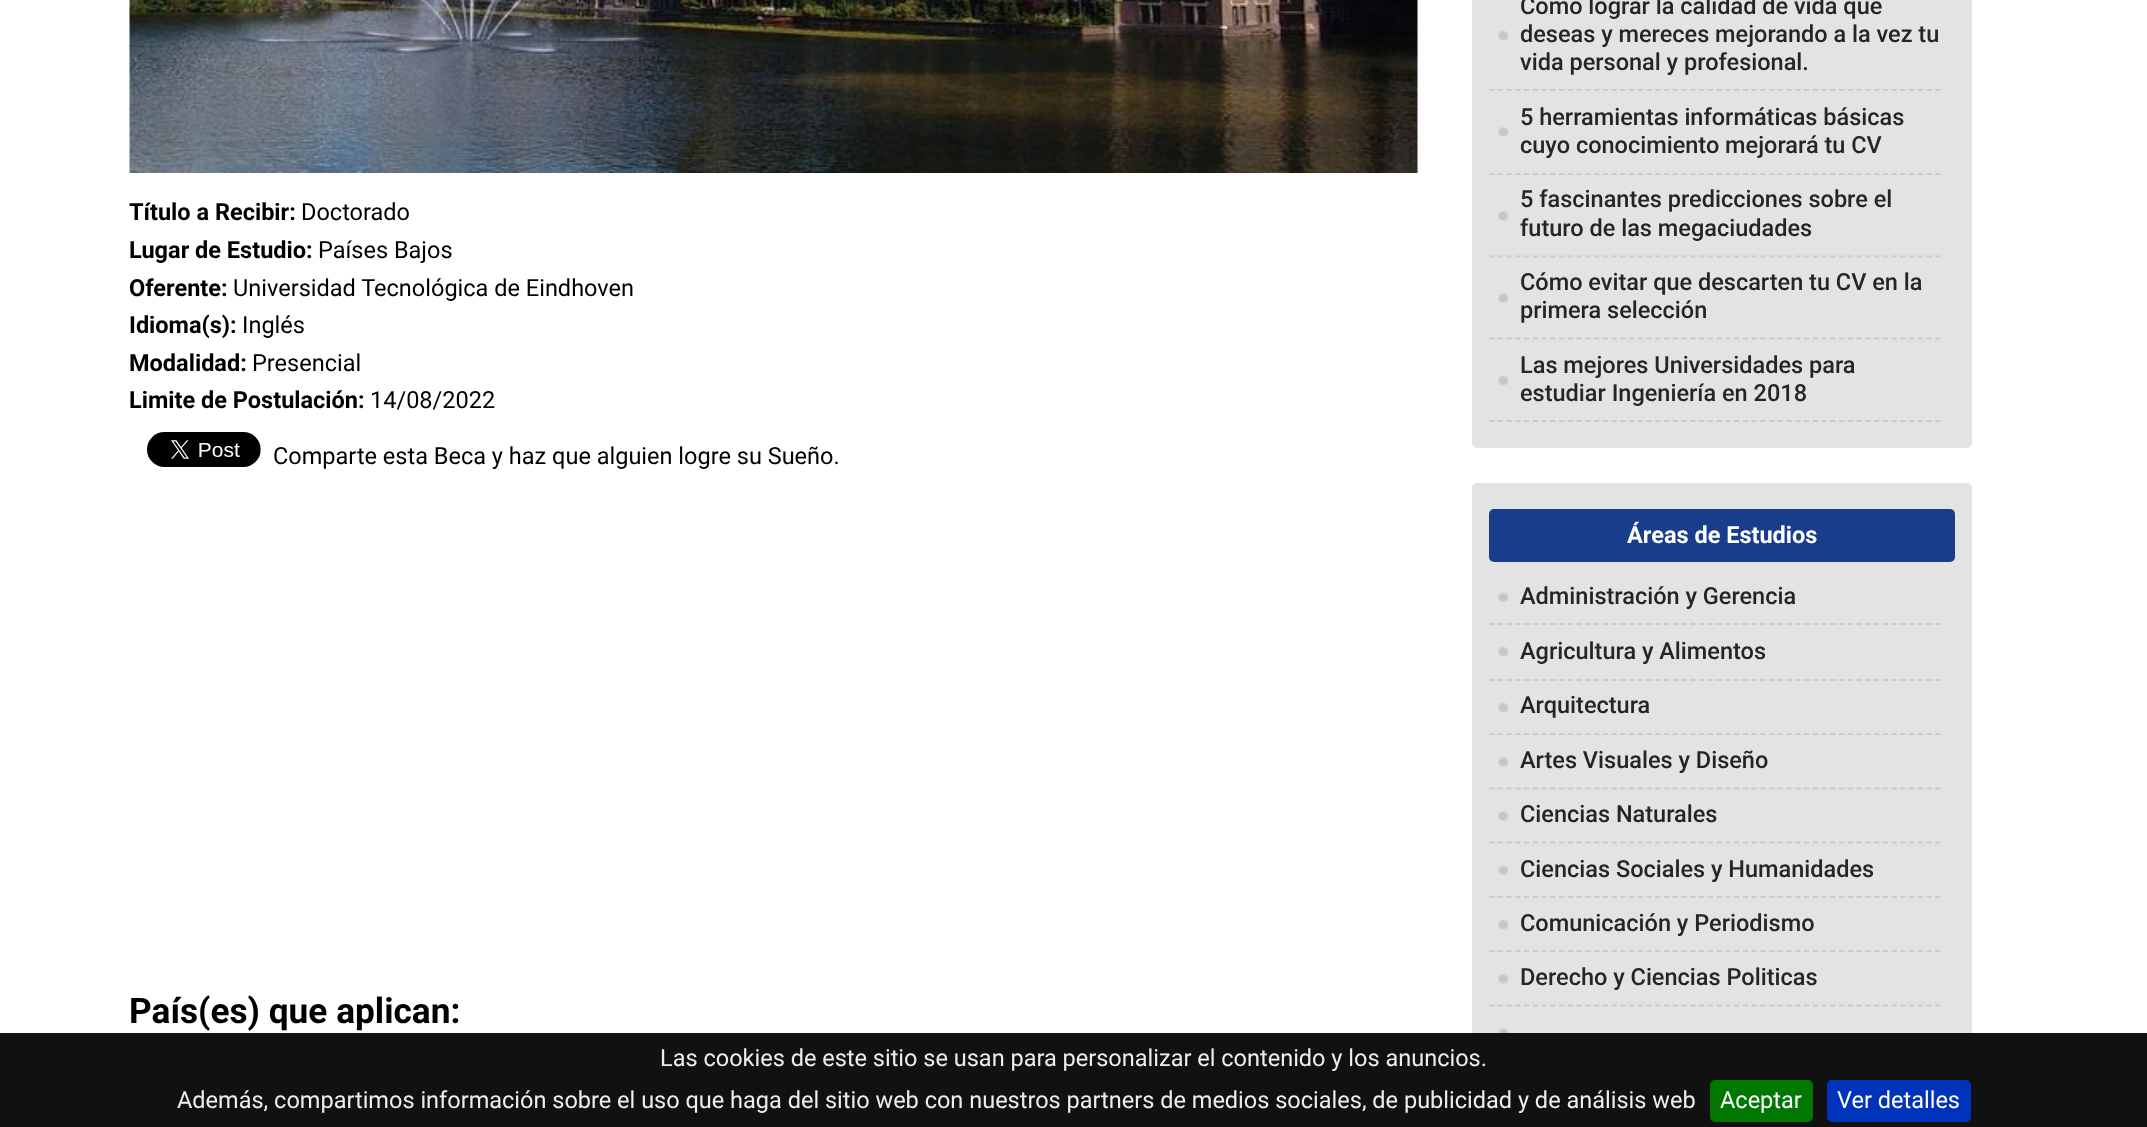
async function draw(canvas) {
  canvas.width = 2147;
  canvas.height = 1127;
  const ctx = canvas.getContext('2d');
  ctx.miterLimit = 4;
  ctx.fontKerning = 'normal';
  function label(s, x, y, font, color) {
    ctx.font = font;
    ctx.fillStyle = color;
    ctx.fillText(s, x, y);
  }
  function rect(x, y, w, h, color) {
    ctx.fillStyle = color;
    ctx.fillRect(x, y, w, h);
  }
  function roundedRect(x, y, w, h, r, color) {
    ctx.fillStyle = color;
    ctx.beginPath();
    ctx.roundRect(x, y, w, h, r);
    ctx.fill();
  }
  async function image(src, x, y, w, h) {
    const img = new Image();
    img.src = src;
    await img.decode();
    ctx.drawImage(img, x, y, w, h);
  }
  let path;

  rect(0, 0, 2147, 1127, '#fff');
  await image('assets/img1.png', 129, 0, 1289, 173);
  label('Título a Recibir:', 129, 220, 'bold 23.52px Roboto', '#000');
  label('Doctorado', 301, 220, '23.52px Roboto', '#000');
  label('Lugar de Estudio:', 129, 258, 'bold 23.52px Roboto', '#000');
  label('Países Bajos', 318, 258, '23.52px Roboto', '#000');
  label('Oferente:', 129, 296, 'bold 23.52px Roboto', '#000');
  label('Universidad Tecnológica de Eindhoven', 233, 296, '23.52px Roboto', '#000');
  label('Idioma(s):', 129, 333, 'bold 23.52px Roboto', '#000');
  label('Inglés', 242, 333, '23.52px Roboto', '#000');
  label('Modalidad:', 129, 371, 'bold 23.52px Roboto', '#000');
  label('Presencial', 252, 371, '23.52px Roboto', '#000');
  label('Limite de Postulación:', 129, 408, 'bold 23.52px Roboto', '#000');
  label('14/08/2022', 370, 408, '23.52px Roboto', '#000');
  await image('assets/img2.png', 147, 432, 114, 35);
  label('Comparte esta Beca y haz que alguien logre su Sueño.', 273, 464, '23.52px Roboto', '#000');
  label('País(es) que aplican:', 129, 1023, 'bold 35.25px Roboto', '#000');
  roundedRect(1472, -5, 500, 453, 5, '#e3e3e3');
  await image('assets/img3.png', 1498, 31, 11, 10);
  path = new Path2D('M1489 90H1941');
  ctx.strokeStyle = '#ccc';
  ctx.lineWidth = 1.8;
  ctx.setLineDash([5.25, 3.5]);
  ctx.stroke(path);
  label('Cómo lograr la calidad de vida que', 1520, 14, '500 23.52px Roboto', '#252525');
  label('deseas y mereces mejorando a la vez tu', 1520, 42, '500 23.52px Roboto', '#252525');
  label('vida personal y profesional.', 1520, 70, '500 23.52px Roboto', '#252525');
  await image('assets/img4.png', 1498, 127, 11, 10);
  path = new Path2D('M1489 174H1941');
  ctx.stroke(path);
  label('5 herramientas informáticas básicas', 1520, 125, '500 23.52px Roboto', '#252525');
  label('cuyo conocimiento mejorará tu CV', 1520, 153, '500 23.52px Roboto', '#252525');
  await image('assets/img4.png', 1498, 211, 11, 10);
  path = new Path2D('M1489 256.5H1941');
  ctx.stroke(path);
  label('5 fascinantes predicciones sobre el', 1520, 207, '500 23.52px Roboto', '#252525');
  label('futuro de las megaciudades', 1520, 236, '500 23.52px Roboto', '#252525');
  await image('assets/img5.png', 1498, 293, 11, 10);
  path = new Path2D('M1489 338.5H1941');
  ctx.stroke(path);
  label('Cómo evitar que descarten tu CV en la', 1520, 290, '500 23.52px Roboto', '#252525');
  label('primera selección', 1520, 318, '500 23.52px Roboto', '#252525');
  await image('assets/img6.png', 1498, 375, 11, 10);
  path = new Path2D('M1489 421H1941');
  ctx.stroke(path);
  label('Las mejores Universidades para', 1520, 373, '500 23.52px Roboto', '#252525');
  label('estudiar Ingeniería en 2018', 1520, 401, '500 23.52px Roboto', '#252525');
  roundedRect(1472, 483, 500, 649, 5, '#e3e3e3');
  roundedRect(1489, 509, 466, 53, 5, '#173d8b');
  label('Áreas de Estudios', 1627, 543, 'bold 23.52px Roboto', '#fff');
  await image('assets/img6.png', 1498, 592, 11, 10);
  path = new Path2D('M1489 624H1941');
  ctx.stroke(path);
  label('Administración y Gerencia', 1520, 604, '500 23.52px Roboto', '#252525');
  await image('assets/img3.png', 1498, 647, 11, 10);
  path = new Path2D('M1489 680H1941');
  ctx.stroke(path);
  label('Agricultura y Alimentos', 1520, 659, '500 23.52px Roboto', '#252525');
  await image('assets/img3.png', 1498, 703, 11, 10);
  path = new Path2D('M1489 734H1941');
  ctx.stroke(path);
  label('Arquitectura', 1520, 713, '500 23.52px Roboto', '#252525');
  await image('assets/img4.png', 1498, 757, 11, 10);
  path = new Path2D('M1489 788.5H1941');
  ctx.stroke(path);
  label('Artes Visuales y Diseño', 1520, 768, '500 23.52px Roboto', '#252525');
  await image('assets/img5.png', 1498, 811, 11, 10);
  path = new Path2D('M1489 842.5H1941');
  ctx.stroke(path);
  label('Ciencias Naturales', 1520, 822, '500 23.52px Roboto', '#252525');
  await image('assets/img6.png', 1498, 865, 11, 10);
  path = new Path2D('M1489 897H1941');
  ctx.stroke(path);
  label('Ciencias Sociales y Humanidades', 1520, 877, '500 23.52px Roboto', '#252525');
  await image('assets/img3.png', 1498, 920, 11, 10);
  path = new Path2D('M1489 951H1941');
  ctx.stroke(path);
  label('Comunicación y Periodismo', 1520, 931, '500 23.52px Roboto', '#252525');
  await image('assets/img4.png', 1498, 974, 11, 10);
  path = new Path2D('M1489 1005.5H1941');
  ctx.stroke(path);
  label('Derecho y Ciencias Politicas', 1520, 985, '500 23.52px Roboto', '#252525');
  await image('assets/img7.png', 1498, 1028, 11, 5);
  rect(0, 1033, 2147, 94, '#111');
  label('Las cookies de este sitio se usan para personalizar el contenido y los anuncios.', 660, 1066, '23.52px Roboto', '#eee');
  label('Además, compartimos información sobre el uso que haga del sitio web con nuestros partners de medios sociales, de publicidad y de análisis web', 177, 1108, '23.52px Roboto', '#eee');
  roundedRect(1710, 1080, 103, 42, 5, '#070');
  label('Aceptar', 1720, 1108, '23.52px Roboto', '#fff');
  roundedRect(1827, 1080, 144, 42, 5, '#03b');
  label('Ver detalles', 1837, 1108, '23.52px Roboto', '#fff');
}

draw(document.querySelector('canvas'));
